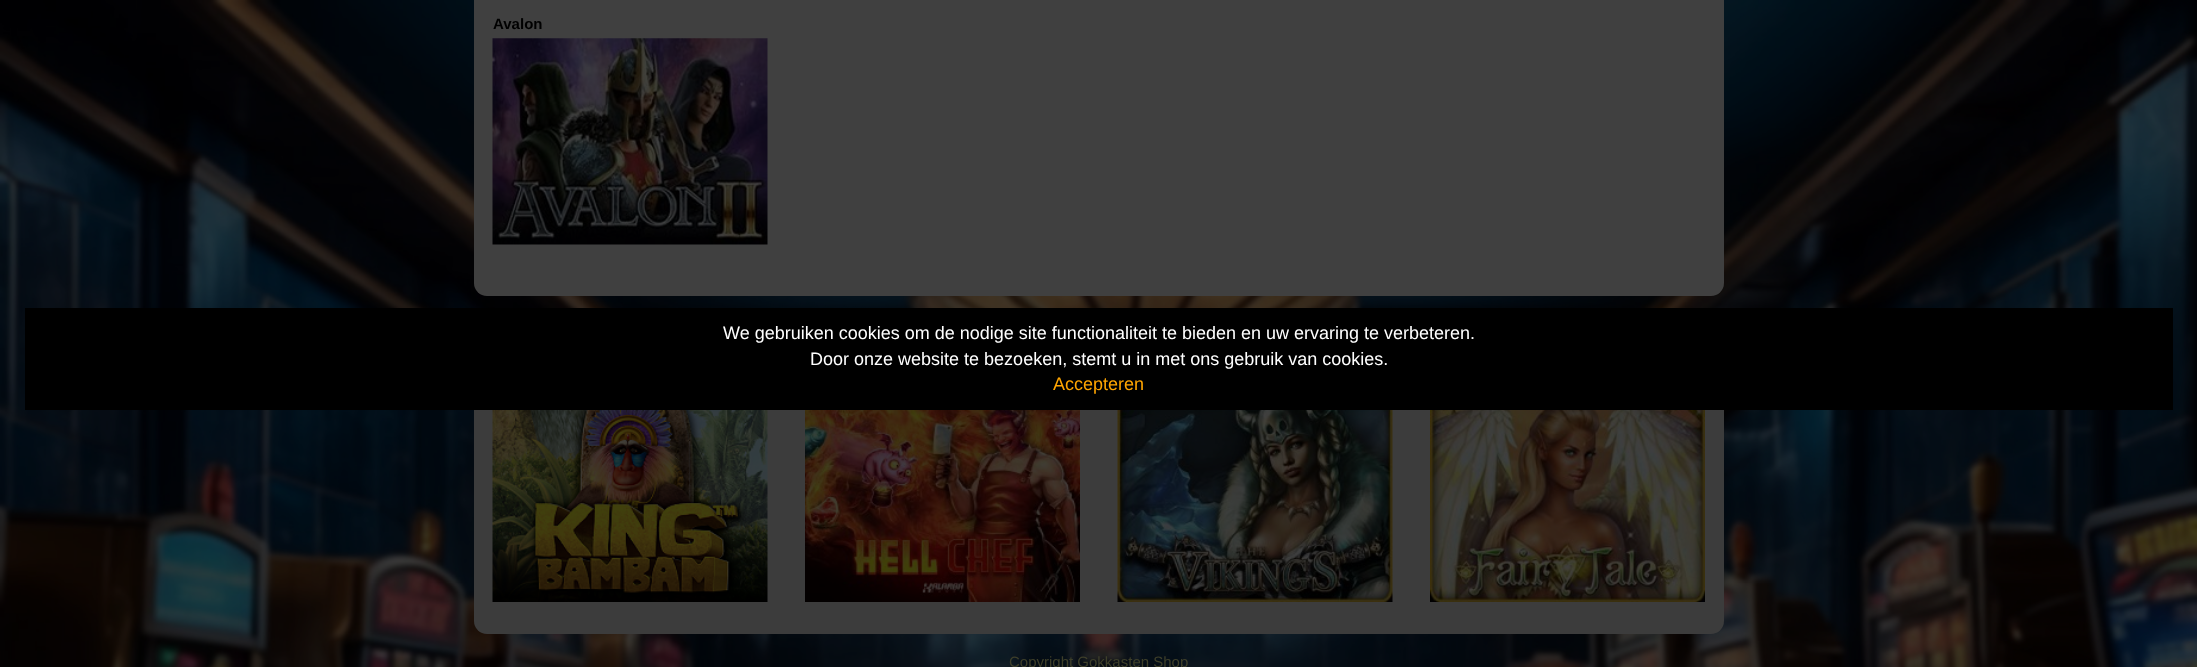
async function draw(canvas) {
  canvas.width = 2197;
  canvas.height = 667;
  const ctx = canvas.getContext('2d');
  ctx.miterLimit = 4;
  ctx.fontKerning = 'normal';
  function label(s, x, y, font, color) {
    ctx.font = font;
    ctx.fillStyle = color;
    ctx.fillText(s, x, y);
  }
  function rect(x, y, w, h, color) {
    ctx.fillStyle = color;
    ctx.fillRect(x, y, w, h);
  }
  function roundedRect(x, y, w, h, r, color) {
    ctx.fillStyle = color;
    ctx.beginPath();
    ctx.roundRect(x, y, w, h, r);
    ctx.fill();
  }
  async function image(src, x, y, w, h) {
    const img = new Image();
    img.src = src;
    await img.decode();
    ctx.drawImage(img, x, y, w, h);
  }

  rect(0, 0, 2197, 667, '#fff');
  await image('assets/img1.png', 0, 0, 2197, 667);
  roundedRect(474, -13, 1250, 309, 13, '#404040');
  label('Avalon', 493, 29, 'bold 15px Liberation Sans', '#000');
  await image('assets/img2.png', 492, 38, 276, 207);
  roundedRect(474, 315, 1250, 319, 13, '#3c3c3c');
  await image('assets/img3.png', 492, 410, 276, 192);
  await image('assets/img4.png', 805, 410, 275, 192);
  await image('assets/img5.png', 1117, 410, 276, 192);
  await image('assets/img6.png', 1430, 410, 275, 192);
  rect(25, 308, 2148, 102, '#000');
  label('We gebruiken cookies om de nodige site functionaliteit te bieden en uw ervaring te verbeteren.', 723, 339, '18px Liberation Sans', '#fff');
  label('Door onze website te bezoeken, stemt u in met ons gebruik van cookies.', 810, 365, '18px Liberation Sans', '#fff');
  label('Accepteren', 1053, 390, '18px Liberation Sans', '#ffa500');
  label('Copyright Gokkasten Shop', 1009, 667, '15px Liberation Sans', '#3e3f2a');
}

draw(document.querySelector('canvas'));
